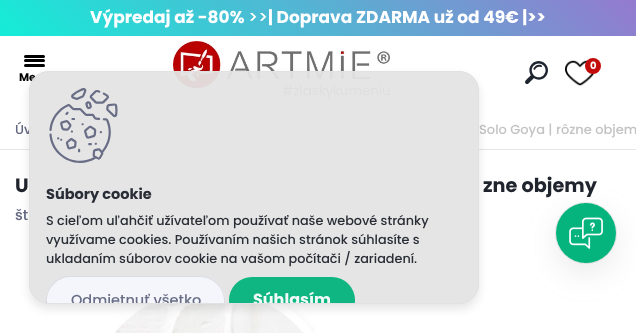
async function draw(canvas) {
  canvas.width = 636;
  canvas.height = 333;
  const ctx = canvas.getContext('2d');
  ctx.miterLimit = 4;
  ctx.fontKerning = 'normal';
  function label(s, x, y, font, color) {
    ctx.font = font;
    ctx.fillStyle = color;
    ctx.fillText(s, x, y);
  }
  function rect(x, y, w, h, color) {
    ctx.fillStyle = color;
    ctx.fillRect(x, y, w, h);
  }
  function roundedRect(x, y, w, h, r, color) {
    ctx.fillStyle = color;
    ctx.beginPath();
    ctx.roundRect(x, y, w, h, r);
    ctx.fill();
  }
  async function image(src, x, y, w, h) {
    const img = new Image();
    img.src = src;
    await img.decode();
    ctx.drawImage(img, x, y, w, h);
  }
  let gradient, path;

  rect(0, 0, 636, 333, '#fff');
  gradient = ctx.createLinearGradient(600, 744, 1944, -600);
  gradient.addColorStop(0, '#00ffd9');
  gradient.addColorStop(0.5, '#ff1ac7');
  gradient.addColorStop(1, '#00ffd9');
  ctx.fillStyle = gradient;
  ctx.fillRect(0, 0, 636, 36);
  label('Výpredaj až -80%', 90, 23, 'bold 17px Poppins', '#fff');
  label('>>', 248, 23, '500 17px Poppins', '#fff');
  label('| Doprava ZDARMA už od 49€ |>>', 268, 23, 'bold 17px Poppins', '#fff');
  roundedRect(24, 55, 21, 3, 1.5, '#000');
  roundedRect(24, 59, 21, 3, 1.5, '#000');
  roundedRect(24, 64, 21, 3, 1.5, '#000');
  label('Me', 19, 81, 'bold 11px Poppins', '#000');
  await image('assets/img1.png', 173, 41, 217, 58);
  await image('assets/img2.png', 525, 61, 23, 23);
  await image('assets/img3.png', 565, 60, 30, 26);
  ctx.fillStyle = '#c40b0b';
  ctx.beginPath();
  ctx.arc(593, 66, 8, 0, 2 * Math.PI);
  ctx.fill();
  label('0', 590, 69, 'bold 10px Poppins', '#fff');
  rect(0, 149, 636, 1, '#e6e6e6');
  label('Úv', 15, 134, '500 13px Poppins', '#626780');
  ctx.fillStyle = '#c3c3c3';
  path = new Path2D('M59 120H60L69.5 129.5H68.5Z');
  ctx.fill(path);
  ctx.fillStyle = '#3737374d';
  path = new Path2D('M68.5 129.5H69.5L60 139H59Z');
  ctx.fill(path);
  ctx.fillStyle = '#c3c3c3';
  path = new Path2D('M233 120H234L243.5 129.5H242.5Z');
  ctx.fill(path);
  ctx.fillStyle = '#3737374d';
  path = new Path2D('M242.5 129.5H243.5L234 139H233Z');
  ctx.fill(path);
  label('Solo Goya | rôzne objem', 479, 134, '500 13px Poppins', '#c3c3c3');
  label('U', 15, 192, 'bold 19.25px Poppins', '#1f242d');
  label('zne objemy', 483, 192, 'bold 19.25px Poppins', '#1f242d');
  label('št', 15, 220, '500 14.5px Poppins', '#626780');
  await image('assets/img4.png', 115, 289, 200, 44);
  ctx.save();
  path = new Path2D('M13 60H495V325H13ZM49 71H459C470 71 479 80 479 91V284C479 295 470 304 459 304H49C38 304 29 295 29 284V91C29 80 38 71 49 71Z');
  ctx.clip(path, 'evenodd');
  ctx.fillStyle = '#0000001a';
  ctx.filter = 'blur(5px)';
  ctx.beginPath();
  ctx.roundRect(29, 76, 450, 233, 20);
  ctx.fill();
  ctx.filter = 'none';
  ctx.restore();
  roundedRect(29, 71, 450, 233, 20, '#e4e4e4f2');
  ctx.beginPath();
  ctx.roundRect(29.5, 71.5, 449, 232, 19.5);
  ctx.strokeStyle = '#e0e0e0f2';
  ctx.stroke();
  await image('assets/img5.png', 49, 88, 69, 75);
  label('Súbory cookie', 46, 199, 'bold 14.5px Poppins', '#292e36');
  label('S cieľom uľahčiť užívateľom používať naše webové stránky', 46, 225, '500 12.8px Poppins', '#292e36');
  label('využívame cookies. Používaním našich stránok súhlasíte s', 46, 244, '500 12.8px Poppins', '#292e36');
  label('ukladaním súborov cookie na vašom počítači / zariadení.', 46, 263, '500 12.8px Poppins', '#292e36');
  ctx.save();
  ctx.beginPath();
  ctx.roundRect(30, 72, 448, 231, 19);
  ctx.clip();
  roundedRect(46, 276, 179, 49, 24.5, '#f5f6fb');
  ctx.restore();
  ctx.fillStyle = '#0000001a';
  path = new Path2D('M70 276C56 276 45 289 46 303H47V300C47 288 58 277 70 277H200C213 277 224 288 224 300V303H225C226 289 215 276 200 276Z');
  ctx.fill(path);
  ctx.save();
  ctx.beginPath();
  ctx.roundRect(30, 72, 448, 231, 19);
  ctx.clip();
  label('Odmietnuť všetko', 71, 305, '500 14.5px Poppins', '#696e86');
  roundedRect(229, 277, 126, 46, 23, '#10b681');
  label('Súhlasím', 253, 305, 'bold 16px Poppins', '#f3fbf9');
  ctx.restore();
  ctx.beginPath();
  ctx.arc(586, 233, 30.5, 0, 2 * Math.PI);
  ctx.strokeStyle = '#eaeaea';
  ctx.stroke();
  ctx.fillStyle = '#96969633';
  ctx.filter = 'blur(15px)';
  ctx.beginPath();
  ctx.roundRect(556, 213, 60, 60, 30);
  ctx.fill();
  ctx.filter = 'none';
  ctx.fillStyle = '#05b47c';
  ctx.beginPath();
  ctx.arc(586, 233, 30, 0, 2 * Math.PI);
  ctx.fill();
  await image('assets/img6.png', 569, 217, 34, 32);
}

draw(document.querySelector('canvas'));
